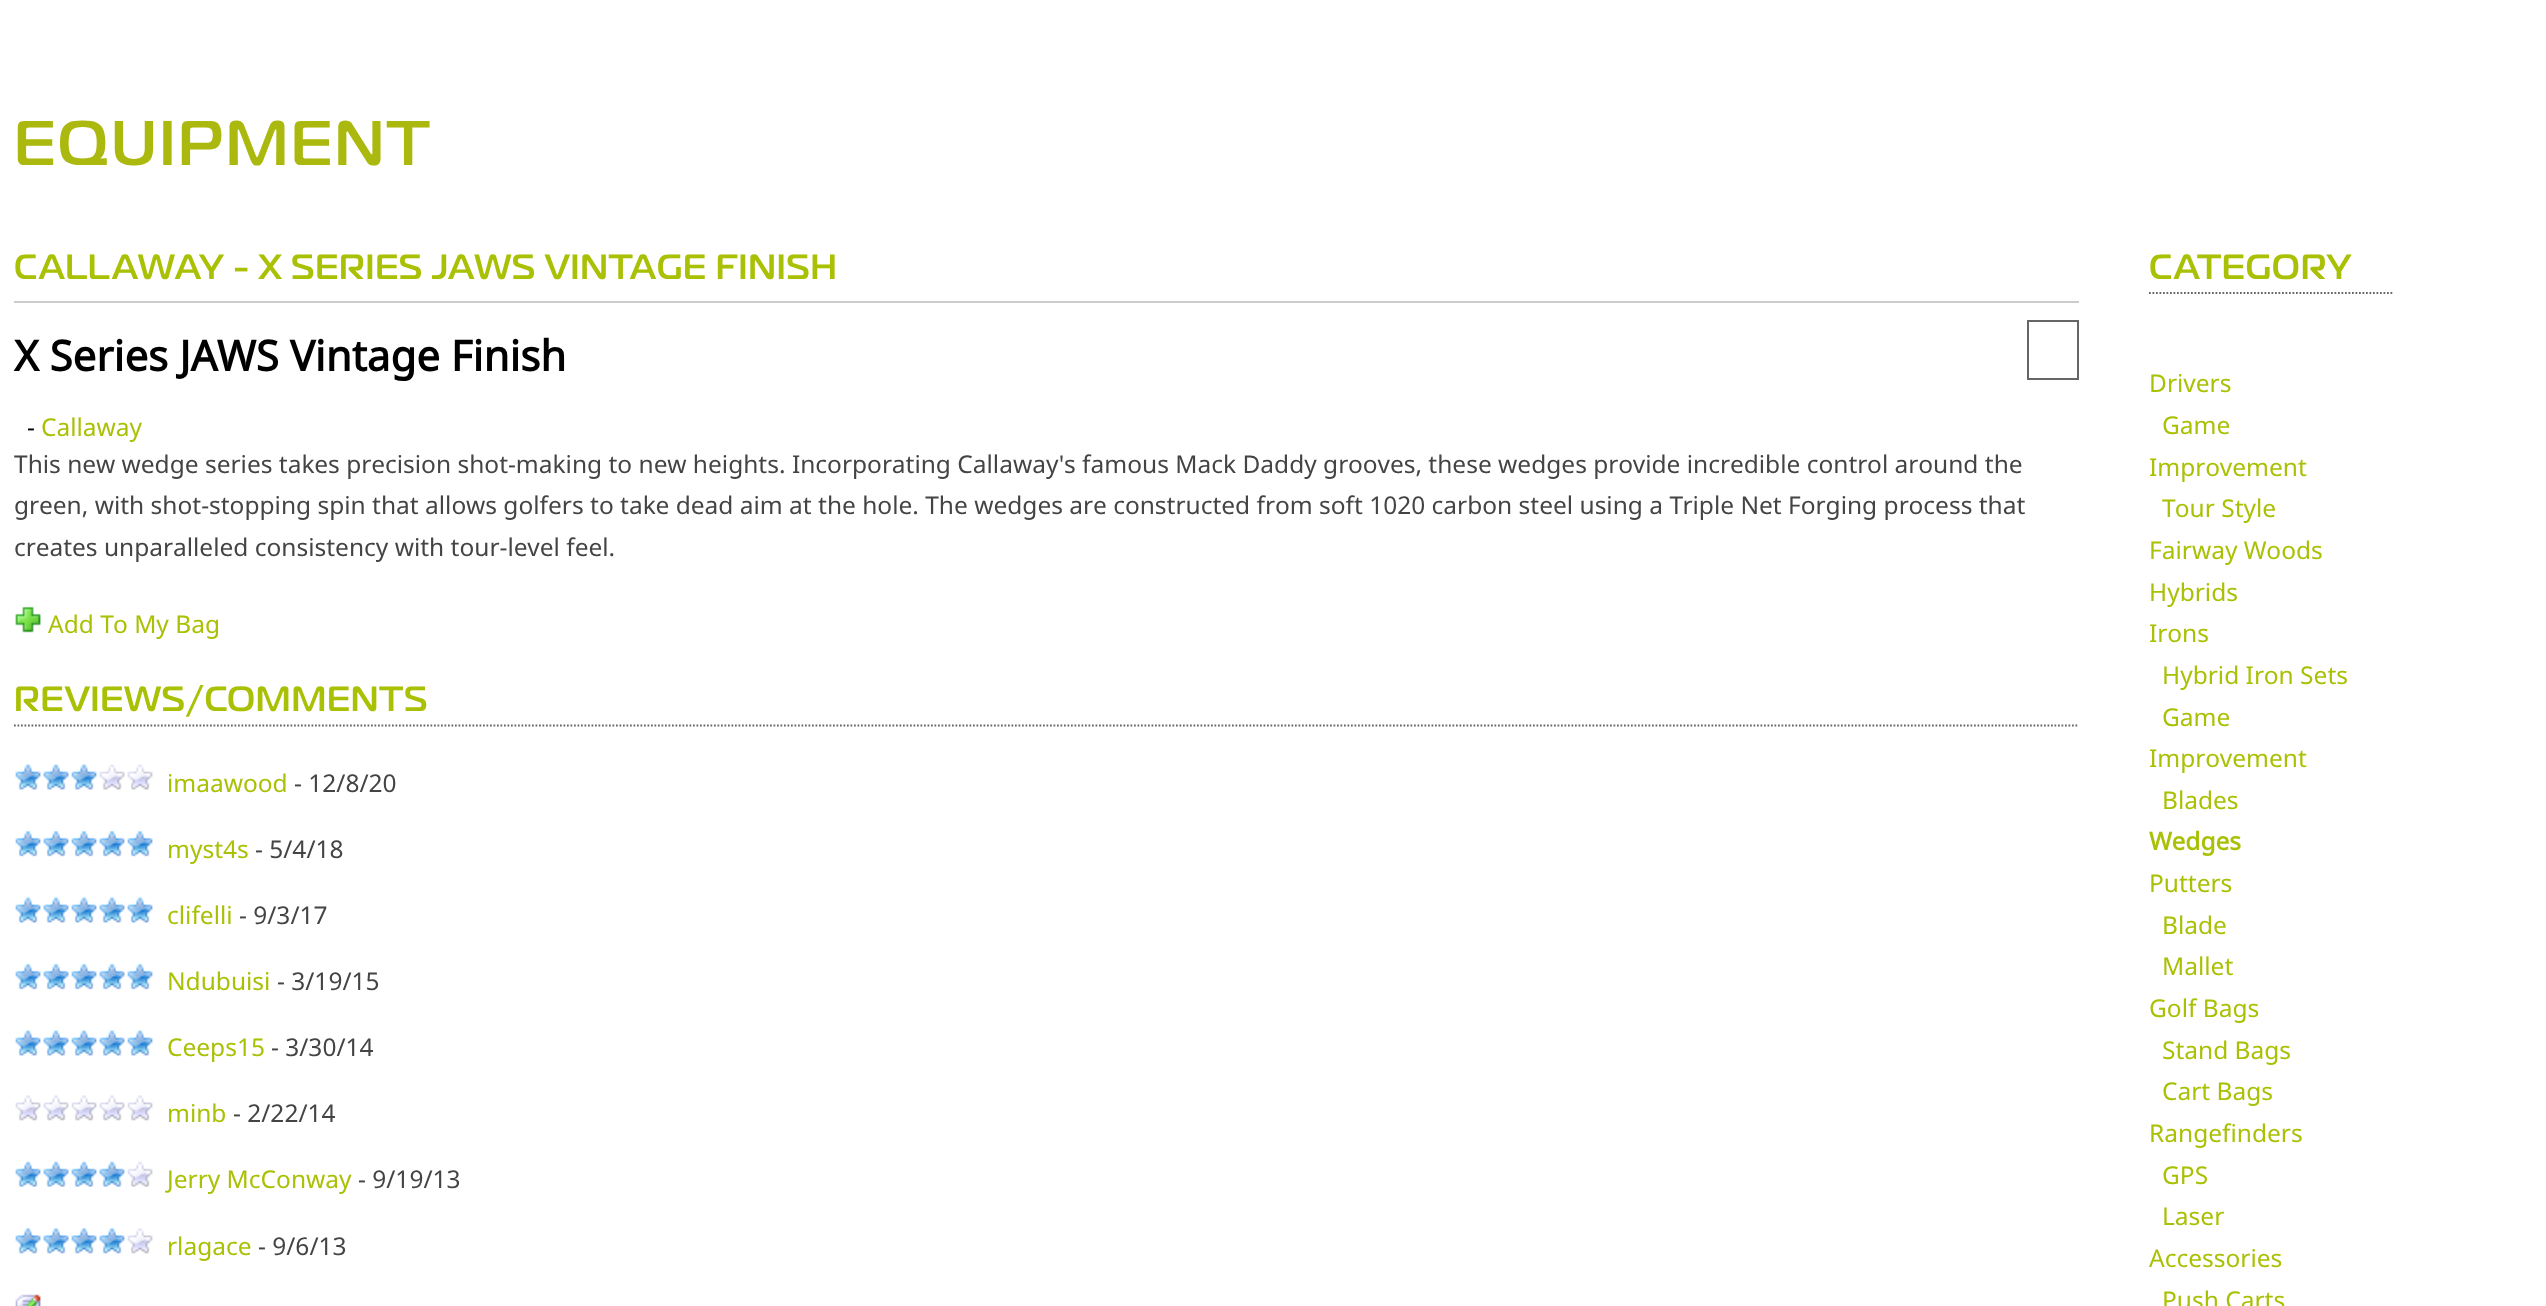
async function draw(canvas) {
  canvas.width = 2546;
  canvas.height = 1306;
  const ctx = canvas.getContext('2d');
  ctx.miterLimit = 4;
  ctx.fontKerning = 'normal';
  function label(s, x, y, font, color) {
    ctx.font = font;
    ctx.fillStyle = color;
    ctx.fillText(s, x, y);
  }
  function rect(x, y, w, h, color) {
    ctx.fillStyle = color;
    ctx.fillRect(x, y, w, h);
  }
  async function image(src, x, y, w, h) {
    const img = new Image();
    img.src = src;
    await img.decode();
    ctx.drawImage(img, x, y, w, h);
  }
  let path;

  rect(0, 0, 2546, 1306, '#fff');
  ctx.letterSpacing = '2.6px';
  label('EQUIPMENT', 14, 165, '500 63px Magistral', '#abb80e');
  ctx.letterSpacing = '0.9px';
  label('CALLAWAY - X SERIES JAWS VINTAGE FINISH', 14, 279, '500 35px Magistral', '#aac005');
  rect(14, 301, 2065, 2, '#ccc');
  ctx.letterSpacing = '0px';
  label('X Series JAWS Vintage Finish', 14, 371, 'bold 42px Noto Sans', '#000');
  ctx.strokeStyle = '#666';
  ctx.lineWidth = 2;
  ctx.strokeRect(2028, 321, 50, 58);
  label('-', 27, 436, '24.5px Noto Sans', '#000');
  label('Callaway', 41, 436, '24.5px Noto Sans', '#aac005');
  label('This new wedge series takes precision shot-making to new heights. Incorporating Callaway\'s famous Mack Daddy grooves, these wedges provide incredible control around the', 14, 473, '24.5px Noto Sans', '#444');
  label('green, with shot-stopping spin that allows golfers to take dead aim at the hole. The wedges are constructed from soft 1020 carbon steel using a Triple Net Forging process that', 14, 514, '24.5px Noto Sans', '#444');
  label('creates unparalleled consistency with tour-level feel.', 14, 556, '24.5px Noto Sans', '#444');
  await image('assets/img1.png', 15, 606, 26, 27);
  label('Add To My Bag', 48, 633, '24.5px Noto Sans', '#aac005');
  path = new Path2D('M14 725.5H2079');
  ctx.lineWidth = 1.8;
  ctx.setLineDash([1.75, 1.75]);
  ctx.stroke(path);
  ctx.letterSpacing = '0.9px';
  label('REVIEWS/COMMENTS', 14, 711, '500 35px Magistral', '#aac005');
  await image('assets/img2.png', 15, 764, 26, 26);
  await image('assets/img3.png', 43, 764, 26, 26);
  await image('assets/img2.png', 71, 764, 26, 26);
  await image('assets/img4.png', 99, 764, 26, 26);
  await image('assets/img5.png', 127, 764, 26, 26);
  ctx.letterSpacing = '0px';
  label('imaawood', 167, 792, '24.5px Noto Sans', '#aac005');
  label('- 12/8/20', 294, 792, '24.5px Noto Sans', '#444');
  await image('assets/img6.png', 15, 830, 26, 27);
  await image('assets/img7.png', 43, 830, 26, 27);
  await image('assets/img6.png', 71, 830, 26, 27);
  await image('assets/img7.png', 99, 830, 26, 27);
  await image('assets/img6.png', 127, 830, 26, 27);
  label('myst4s', 167, 858, '24.5px Noto Sans', '#aac005');
  label('- 5/4/18', 255, 858, '24.5px Noto Sans', '#444');
  await image('assets/img2.png', 15, 897, 26, 26);
  await image('assets/img3.png', 43, 897, 26, 26);
  await image('assets/img2.png', 71, 897, 26, 26);
  await image('assets/img3.png', 99, 897, 26, 26);
  await image('assets/img2.png', 127, 897, 26, 26);
  label('clifelli', 167, 924, '24.5px Noto Sans', '#aac005');
  label('- 9/3/17', 239, 924, '24.5px Noto Sans', '#444');
  await image('assets/img6.png', 15, 963, 26, 27);
  await image('assets/img7.png', 43, 963, 26, 27);
  await image('assets/img6.png', 71, 963, 26, 27);
  await image('assets/img7.png', 99, 963, 26, 27);
  await image('assets/img6.png', 127, 963, 26, 27);
  label('Ndubuisi', 167, 990, '24.5px Noto Sans', '#aac005');
  label('- 3/19/15', 277, 990, '24.5px Noto Sans', '#444');
  await image('assets/img2.png', 15, 1030, 26, 26);
  await image('assets/img3.png', 43, 1030, 26, 26);
  await image('assets/img2.png', 71, 1030, 26, 26);
  await image('assets/img3.png', 99, 1030, 26, 26);
  await image('assets/img2.png', 127, 1030, 26, 26);
  label('Ceeps15', 167, 1056, '24.5px Noto Sans', '#aac005');
  label('- 3/30/14', 271, 1056, '24.5px Noto Sans', '#444');
  await image('assets/img8.png', 15, 1095, 26, 26);
  await image('assets/img9.png', 43, 1095, 26, 26);
  await image('assets/img8.png', 71, 1095, 26, 26);
  await image('assets/img9.png', 99, 1095, 26, 26);
  await image('assets/img8.png', 127, 1095, 26, 26);
  label('minb', 167, 1122, '24.5px Noto Sans', '#aac005');
  label('- 2/22/14', 233, 1122, '24.5px Noto Sans', '#444');
  await image('assets/img10.png', 15, 1161, 26, 26);
  await image('assets/img11.png', 43, 1161, 26, 26);
  await image('assets/img10.png', 71, 1161, 26, 26);
  await image('assets/img11.png', 99, 1161, 26, 26);
  await image('assets/img12.png', 127, 1161, 26, 26);
  label('Jerry McConway', 167, 1188, '24.5px Noto Sans', '#aac005');
  label('- 9/19/13', 358, 1188, '24.5px Noto Sans', '#444');
  await image('assets/img13.png', 15, 1228, 26, 26);
  await image('assets/img14.png', 43, 1228, 26, 26);
  await image('assets/img13.png', 71, 1228, 26, 26);
  await image('assets/img14.png', 99, 1228, 26, 26);
  await image('assets/img8.png', 127, 1228, 26, 26);
  label('rlagace', 167, 1255, '24.5px Noto Sans', '#aac005');
  label('- 9/6/13', 258, 1255, '24.5px Noto Sans', '#444');
  await image('assets/img15.png', 15, 1294, 26, 12);
  path = new Path2D('M2149 293H2394');
  ctx.stroke(path);
  ctx.letterSpacing = '0.9px';
  label('CATEGORY', 2149, 279, '500 35px Magistral', '#aac005');
  ctx.letterSpacing = '0px';
  label('Drivers', 2149, 392, '24.5px Noto Sans', '#aac005');
  label('Game', 2162, 434, '24.5px Noto Sans', '#aac005');
  label('Improvement', 2149, 476, '24.5px Noto Sans', '#aac005');
  label('Tour Style', 2162, 517, '24.5px Noto Sans', '#aac005');
  label('Fairway Woods', 2149, 559, '24.5px Noto Sans', '#aac005');
  label('Hybrids', 2149, 601, '24.5px Noto Sans', '#aac005');
  label('Irons', 2149, 642, '24.5px Noto Sans', '#aac005');
  label('Hybrid Iron Sets', 2162, 684, '24.5px Noto Sans', '#aac005');
  label('Game', 2162, 726, '24.5px Noto Sans', '#aac005');
  label('Improvement', 2149, 767, '24.5px Noto Sans', '#aac005');
  label('Blades', 2162, 809, '24.5px Noto Sans', '#aac005');
  label('Wedges', 2149, 850, 'bold 24.5px Noto Sans', '#aac005');
  label('Putters', 2149, 892, '24.5px Noto Sans', '#aac005');
  label('Blade', 2162, 934, '24.5px Noto Sans', '#aac005');
  label('Mallet', 2162, 975, '24.5px Noto Sans', '#aac005');
  label('Golf Bags', 2149, 1017, '24.5px Noto Sans', '#aac005');
  label('Stand Bags', 2162, 1059, '24.5px Noto Sans', '#aac005');
  label('Cart Bags', 2162, 1100, '24.5px Noto Sans', '#aac005');
  label('Rangefinders', 2149, 1142, '24.5px Noto Sans', '#aac005');
  label('GPS', 2162, 1184, '24.5px Noto Sans', '#aac005');
  label('Laser', 2162, 1225, '24.5px Noto Sans', '#aac005');
  label('Accessories', 2149, 1267, '24.5px Noto Sans', '#aac005');
  label('Push Carts', 2162, 1309, '24.5px Noto Sans', '#aac005');
}

draw(document.querySelector('canvas'));
